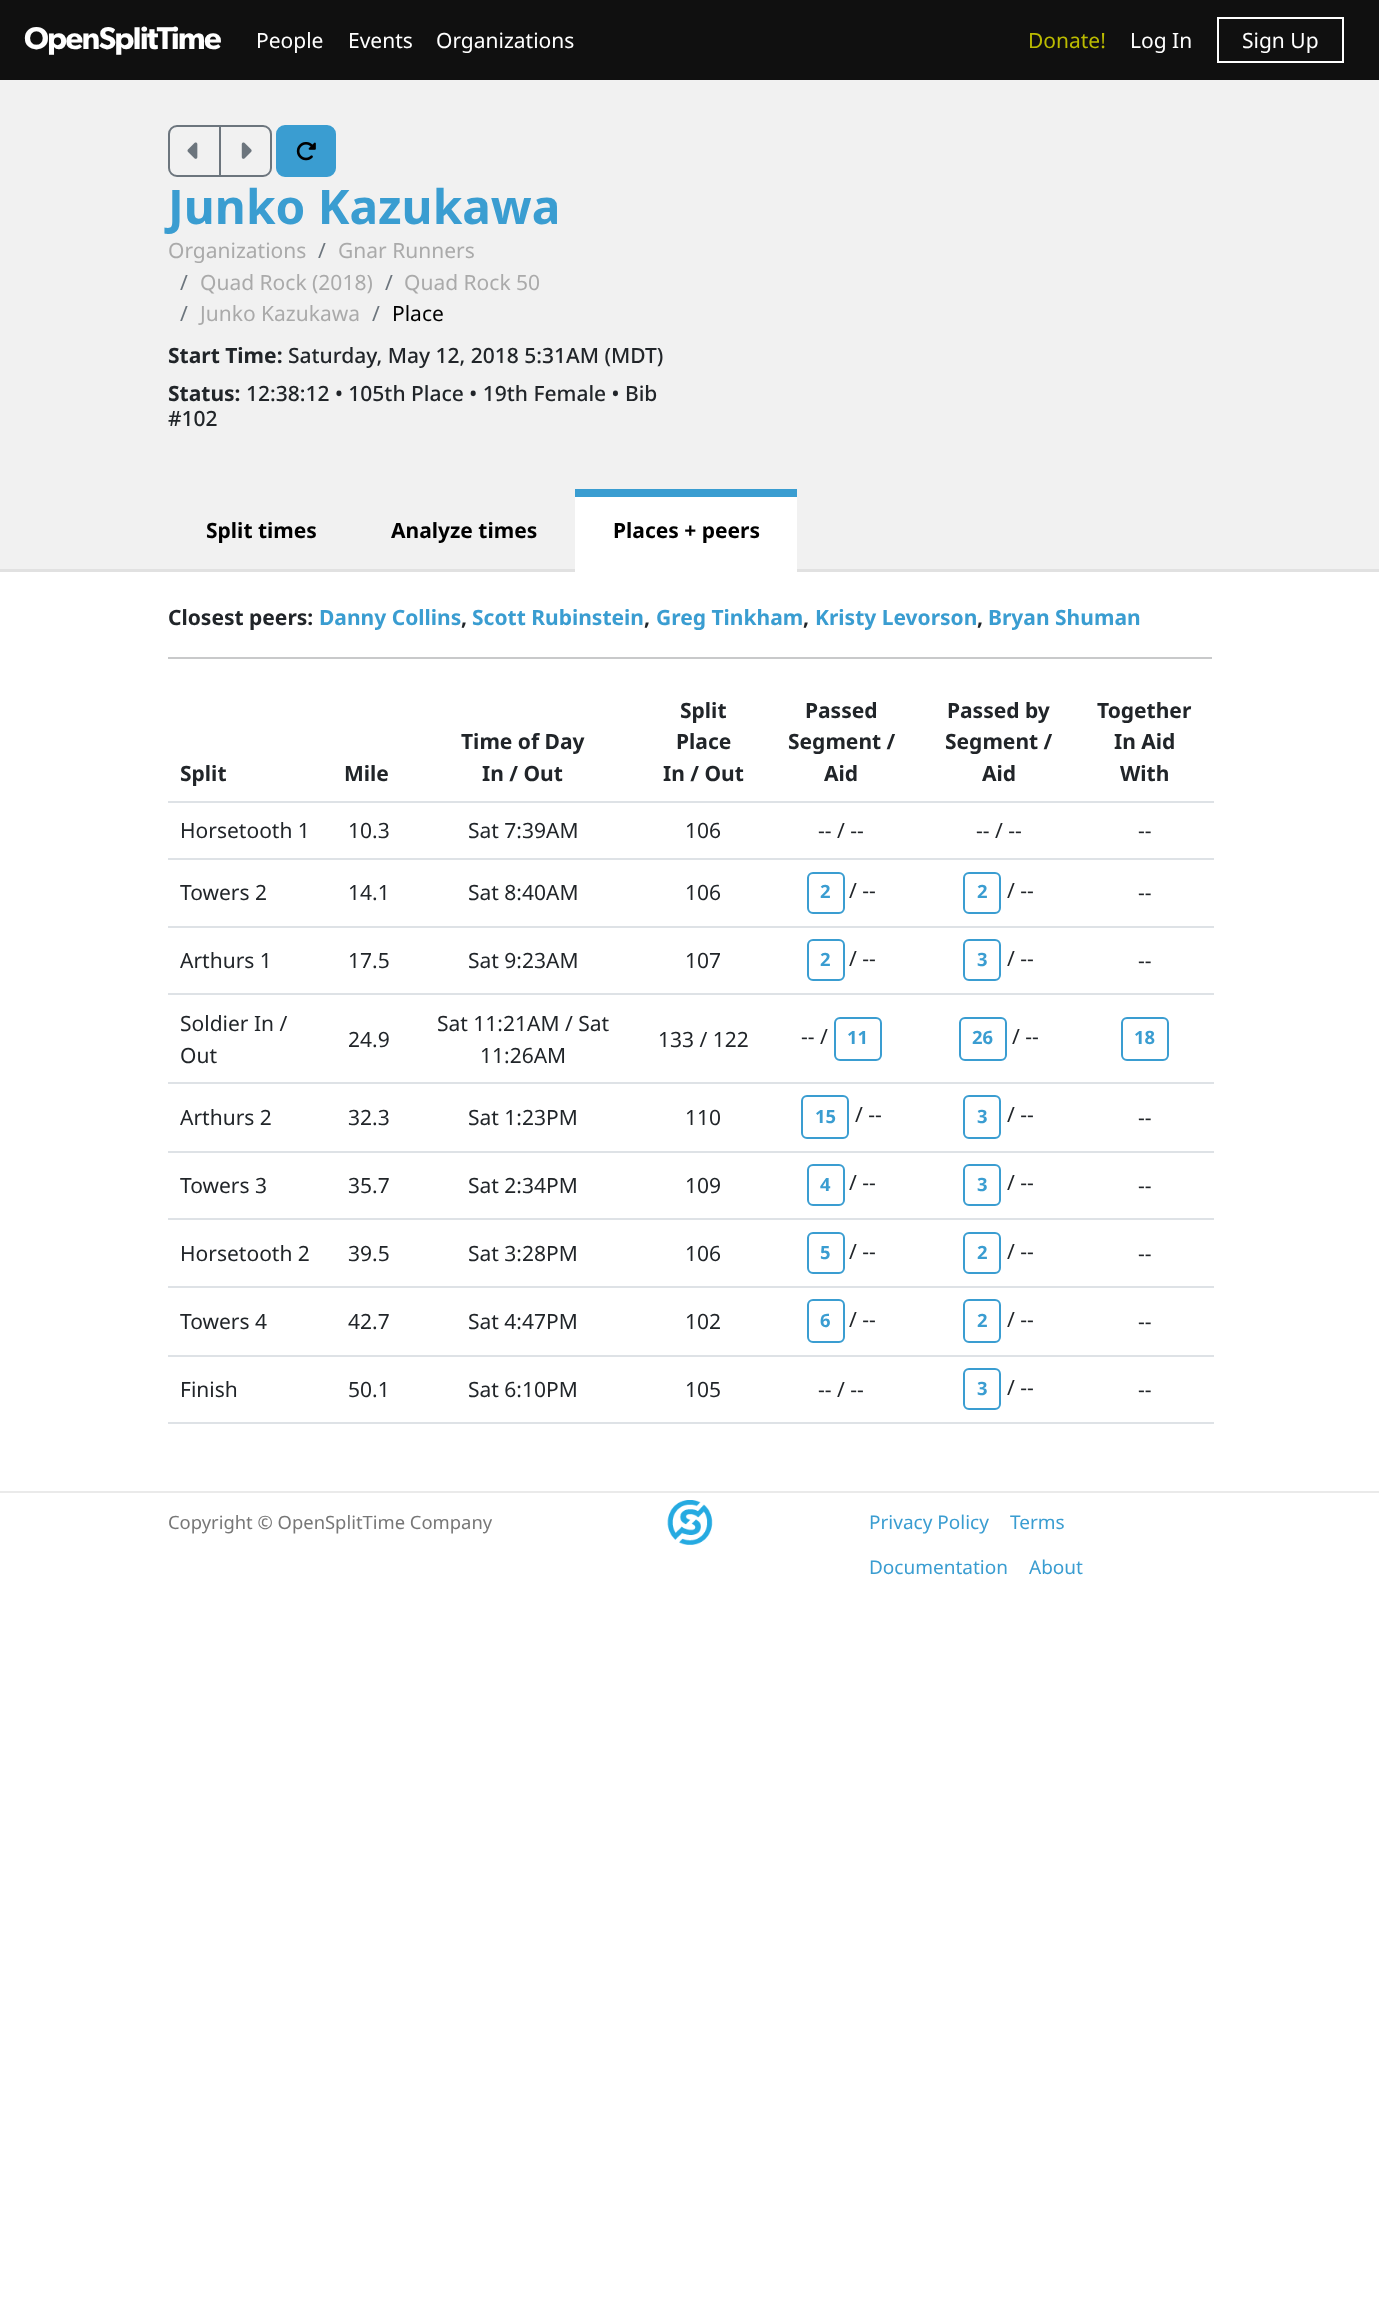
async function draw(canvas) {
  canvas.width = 1379;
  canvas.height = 2323;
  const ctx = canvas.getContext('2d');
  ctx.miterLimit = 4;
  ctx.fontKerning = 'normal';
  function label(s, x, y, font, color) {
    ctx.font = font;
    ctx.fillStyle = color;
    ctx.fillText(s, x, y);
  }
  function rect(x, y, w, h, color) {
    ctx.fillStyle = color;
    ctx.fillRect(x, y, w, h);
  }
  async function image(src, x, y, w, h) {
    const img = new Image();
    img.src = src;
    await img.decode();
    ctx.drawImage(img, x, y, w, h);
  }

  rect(0, 0, 1379, 2323, '#fff');
  rect(0, 0, 1379, 80, '#101010');
  ctx.letterSpacing = '-1.5px';
  label('OpenSplitTime', 24, 49, '600 31.5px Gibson', '#fff');
  ctx.letterSpacing = '0px';
  label('People', 256, 48, '21px Noto Sans', '#fff');
  label('Events', 348, 48, '21px Noto Sans', '#fff');
  label('Organizations', 436, 48, '21px Noto Sans', '#fff');
  label('Donate!', 1028, 48, '21px Noto Sans', '#bb0');
  label('Log In', 1130, 48, '21px Noto Sans', '#fff');
  ctx.strokeStyle = '#fff';
  ctx.lineWidth = 2;
  ctx.strokeRect(1218, 18, 125, 44);
  label('Sign Up', 1242, 48, '21px Noto Sans', '#fff');
  rect(0, 80, 1379, 489, '#f1f1f1');
  rect(0, 569, 1379, 3, '#e1e1e1');
  ctx.beginPath();
  ctx.roundRect(169, 126, 51, 50, [8, 0, 0, 8]);
  ctx.strokeStyle = '#6c757d';
  ctx.stroke();
  await image('assets/img1.png', 187, 142, 11, 17);
  ctx.beginPath();
  ctx.roundRect(220, 126, 51, 50, [0, 8, 8, 0]);
  ctx.stroke();
  await image('assets/img2.png', 241, 142, 11, 17);
  ctx.fillStyle = '#3a9dd1';
  ctx.beginPath();
  ctx.roundRect(277, 126, 58, 50, 8);
  ctx.fill();
  ctx.strokeStyle = '#3a9dd1';
  ctx.stroke();
  await image('assets/img3.png', 296, 142, 20, 19);
  label('Junko Kazukawa', 168, 224, 'bold 47.75px Noto Sans', '#3a9dd1');
  label('Organizations', 168, 258, '21px Noto Sans', '#aaa');
  label('/', 318, 258, '21px Noto Sans', '#6c757d');
  label('Gnar Runners', 338, 258, '21px Noto Sans', '#aaa');
  label('/', 180, 290, '21px Noto Sans', '#6c757d');
  label('Quad Rock (2018)', 200, 290, '21px Noto Sans', '#aaa');
  label('/', 385, 290, '21px Noto Sans', '#6c757d');
  label('Quad Rock 50', 404, 290, '21px Noto Sans', '#aaa');
  label('/', 180, 321, '21px Noto Sans', '#6c757d');
  label('Junko Kazukawa', 200, 321, '21px Noto Sans', '#aaa');
  label('/', 372, 321, '21px Noto Sans', '#6c757d');
  label('Place', 392, 321, '21px Noto Sans', '#000');
  label('Start Time:', 168, 363, 'bold 21px Noto Sans', '#212529');
  label('Saturday, May 12, 2018 5:31AM (MDT)', 288, 363, '500 21px Noto Sans', '#212529');
  label('Status:', 168, 401, 'bold 21px Noto Sans', '#212529');
  label('12:38:12 • 105th Place • 19th Female • Bib', 246, 401, '500 21px Noto Sans', '#212529');
  label('#102', 168, 426, '500 21px Noto Sans', '#212529');
  label('Split times', 206, 538, 'bold 21px Noto Sans', '#000');
  label('Analyze times', 391, 538, 'bold 21px Noto Sans', '#000');
  rect(575, 497, 222, 75, '#fff');
  rect(575, 489, 222, 8, '#3a9dd1');
  label('Places + peers', 613, 538, 'bold 21px Noto Sans', '#000');
  label('Closest peers:', 168, 625, 'bold 21px Noto Sans', '#212529');
  label('Danny Collins', 319, 625, 'bold 21px Noto Sans', '#3a9dd1');
  label(',', 461, 625, 'bold 21px Noto Sans', '#212529');
  label('Scott Rubinstein', 472, 625, 'bold 21px Noto Sans', '#3a9dd1');
  label(',', 644, 625, 'bold 21px Noto Sans', '#212529');
  label('Greg Tinkham', 656, 625, 'bold 21px Noto Sans', '#3a9dd1');
  label(',', 803, 625, 'bold 21px Noto Sans', '#212529');
  label('Kristy Levorson', 815, 625, 'bold 21px Noto Sans', '#3a9dd1');
  label(',', 977, 625, 'bold 21px Noto Sans', '#212529');
  label('Bryan Shuman', 988, 625, 'bold 21px Noto Sans', '#3a9dd1');
  rect(168, 657, 1044, 2, '#c8c9ca');
  label('Split', 180, 781, 'bold 21px Noto Sans', '#212529');
  label('Mile', 344, 781, 'bold 21px Noto Sans', '#212529');
  label('Time of Day', 461, 749, 'bold 21px Noto Sans', '#212529');
  label('In / Out', 482, 781, 'bold 21px Noto Sans', '#212529');
  label('Split', 680, 718, 'bold 21px Noto Sans', '#212529');
  label('Place', 676, 749, 'bold 21px Noto Sans', '#212529');
  label('In / Out', 663, 781, 'bold 21px Noto Sans', '#212529');
  label('Passed', 805, 718, 'bold 21px Noto Sans', '#212529');
  label('Segment /', 788, 749, 'bold 21px Noto Sans', '#212529');
  label('Aid', 824, 781, 'bold 21px Noto Sans', '#212529');
  label('Passed by', 947, 718, 'bold 21px Noto Sans', '#212529');
  label('Segment /', 945, 749, 'bold 21px Noto Sans', '#212529');
  label('Aid', 982, 781, 'bold 21px Noto Sans', '#212529');
  rect(168, 801, 1046, 2, '#dee2e6');
  label('Together', 1097, 718, 'bold 21px Noto Sans', '#212529');
  label('In Aid', 1114, 749, 'bold 21px Noto Sans', '#212529');
  label('With', 1120, 781, 'bold 21px Noto Sans', '#212529');
  label('Horsetooth 1', 180, 838, '21px Noto Sans', '#212529');
  label('10.3', 348, 838, '21px Noto Sans', '#212529');
  label('Sat 7:39AM', 468, 838, '21px Noto Sans', '#212529');
  label('106', 685, 838, '21px Noto Sans', '#212529');
  label('-- / --', 818, 838, '21px Noto Sans', '#212529');
  label('-- / --', 976, 838, '21px Noto Sans', '#212529');
  rect(168, 858, 1046, 2, '#dee2e6');
  label('--', 1138, 838, '21px Noto Sans', '#212529');
  label('Towers 2', 180, 900, '21px Noto Sans', '#212529');
  label('14.1', 348, 900, '21px Noto Sans', '#212529');
  label('Sat 8:40AM', 468, 900, '21px Noto Sans', '#212529');
  label('106', 685, 900, '21px Noto Sans', '#212529');
  ctx.beginPath();
  ctx.roundRect(808, 873, 36, 40, 5);
  ctx.stroke();
  label('2', 820, 898, 'bold 18.4px Noto Sans', '#3a9dd1');
  label('/ --', 849, 898, '21px Noto Sans', '#212529');
  ctx.beginPath();
  ctx.roundRect(964, 873, 36, 40, 5);
  ctx.stroke();
  label('2', 977, 898, 'bold 18.4px Noto Sans', '#3a9dd1');
  label('/ --', 1007, 898, '21px Noto Sans', '#212529');
  rect(168, 926, 1046, 2, '#dee2e6');
  label('--', 1138, 900, '21px Noto Sans', '#212529');
  label('Arthurs 1', 180, 968, '21px Noto Sans', '#212529');
  label('17.5', 348, 968, '21px Noto Sans', '#212529');
  label('Sat 9:23AM', 468, 968, '21px Noto Sans', '#212529');
  label('107', 685, 968, '21px Noto Sans', '#212529');
  ctx.beginPath();
  ctx.roundRect(808, 940, 36, 40, 5);
  ctx.stroke();
  label('2', 820, 966, 'bold 18.4px Noto Sans', '#3a9dd1');
  label('/ --', 849, 966, '21px Noto Sans', '#212529');
  ctx.beginPath();
  ctx.roundRect(964, 940, 36, 40, 5);
  ctx.stroke();
  label('3', 977, 966, 'bold 18.4px Noto Sans', '#3a9dd1');
  label('/ --', 1007, 966, '21px Noto Sans', '#212529');
  rect(168, 993, 1046, 2, '#dee2e6');
  label('--', 1138, 968, '21px Noto Sans', '#212529');
  label('Soldier In /', 180, 1031, '21px Noto Sans', '#212529');
  label('Out', 180, 1063, '21px Noto Sans', '#212529');
  label('24.9', 348, 1047, '21px Noto Sans', '#212529');
  label('Sat 11:21AM / Sat', 437, 1031, '21px Noto Sans', '#212529');
  label('11:26AM', 480, 1063, '21px Noto Sans', '#212529');
  label('133 / 122', 658, 1047, '21px Noto Sans', '#212529');
  label('-- /', 801, 1044, '21px Noto Sans', '#212529');
  ctx.beginPath();
  ctx.roundRect(835, 1018, 46, 42, 5);
  ctx.stroke();
  label('11', 847, 1044, 'bold 18.4px Noto Sans', '#3a9dd1');
  ctx.beginPath();
  ctx.roundRect(960, 1018, 46, 42, 5);
  ctx.stroke();
  label('26', 972, 1044, 'bold 18.4px Noto Sans', '#3a9dd1');
  label('/ --', 1012, 1044, '21px Noto Sans', '#212529');
  rect(168, 1082, 1046, 2, '#dee2e6');
  ctx.beginPath();
  ctx.roundRect(1122, 1018, 46, 42, 5);
  ctx.stroke();
  label('18', 1134, 1044, 'bold 18.4px Noto Sans', '#3a9dd1');
  label('Arthurs 2', 180, 1125, '21px Noto Sans', '#212529');
  label('32.3', 348, 1125, '21px Noto Sans', '#212529');
  label('Sat 1:23PM', 468, 1125, '21px Noto Sans', '#212529');
  label('110', 685, 1125, '21px Noto Sans', '#212529');
  ctx.beginPath();
  ctx.roundRect(802, 1096, 46, 42, 5);
  ctx.stroke();
  label('15', 815, 1123, 'bold 18.4px Noto Sans', '#3a9dd1');
  label('/ --', 855, 1122, '21px Noto Sans', '#212529');
  ctx.beginPath();
  ctx.roundRect(964, 1096, 36, 42, 5);
  ctx.stroke();
  label('3', 977, 1123, 'bold 18.4px Noto Sans', '#3a9dd1');
  label('/ --', 1007, 1122, '21px Noto Sans', '#212529');
  rect(168, 1151, 1046, 2, '#dee2e6');
  label('--', 1138, 1125, '21px Noto Sans', '#212529');
  label('Towers 3', 180, 1193, '21px Noto Sans', '#212529');
  label('35.7', 348, 1193, '21px Noto Sans', '#212529');
  label('Sat 2:34PM', 468, 1193, '21px Noto Sans', '#212529');
  label('109', 685, 1193, '21px Noto Sans', '#212529');
  ctx.beginPath();
  ctx.roundRect(808, 1165, 36, 40, 5);
  ctx.stroke();
  label('4', 820, 1191, 'bold 18.4px Noto Sans', '#3a9dd1');
  label('/ --', 849, 1190, '21px Noto Sans', '#212529');
  ctx.beginPath();
  ctx.roundRect(964, 1165, 36, 40, 5);
  ctx.stroke();
  label('3', 977, 1191, 'bold 18.4px Noto Sans', '#3a9dd1');
  label('/ --', 1007, 1190, '21px Noto Sans', '#212529');
  rect(168, 1218, 1046, 2, '#dee2e6');
  label('--', 1138, 1193, '21px Noto Sans', '#212529');
  label('Horsetooth 2', 180, 1261, '21px Noto Sans', '#212529');
  label('39.5', 348, 1261, '21px Noto Sans', '#212529');
  label('Sat 3:28PM', 468, 1261, '21px Noto Sans', '#212529');
  label('106', 685, 1261, '21px Noto Sans', '#212529');
  ctx.beginPath();
  ctx.roundRect(808, 1233, 36, 40, 5);
  ctx.stroke();
  label('5', 820, 1259, 'bold 18.4px Noto Sans', '#3a9dd1');
  label('/ --', 849, 1259, '21px Noto Sans', '#212529');
  ctx.beginPath();
  ctx.roundRect(964, 1233, 36, 40, 5);
  ctx.stroke();
  label('2', 977, 1259, 'bold 18.4px Noto Sans', '#3a9dd1');
  label('/ --', 1007, 1259, '21px Noto Sans', '#212529');
  rect(168, 1286, 1046, 2, '#dee2e6');
  label('--', 1138, 1261, '21px Noto Sans', '#212529');
  label('Towers 4', 180, 1329, '21px Noto Sans', '#212529');
  label('42.7', 348, 1329, '21px Noto Sans', '#212529');
  label('Sat 4:47PM', 468, 1329, '21px Noto Sans', '#212529');
  label('102', 685, 1329, '21px Noto Sans', '#212529');
  ctx.beginPath();
  ctx.roundRect(808, 1300, 36, 42, 5);
  ctx.stroke();
  label('6', 820, 1327, 'bold 18.4px Noto Sans', '#3a9dd1');
  label('/ --', 849, 1327, '21px Noto Sans', '#212529');
  ctx.beginPath();
  ctx.roundRect(964, 1300, 36, 42, 5);
  ctx.stroke();
  label('2', 977, 1327, 'bold 18.4px Noto Sans', '#3a9dd1');
  label('/ --', 1007, 1327, '21px Noto Sans', '#212529');
  rect(168, 1355, 1046, 2, '#dee2e6');
  label('--', 1138, 1329, '21px Noto Sans', '#212529');
  label('Finish', 180, 1397, '21px Noto Sans', '#212529');
  label('50.1', 348, 1397, '21px Noto Sans', '#212529');
  label('Sat 6:10PM', 468, 1397, '21px Noto Sans', '#212529');
  label('105', 685, 1397, '21px Noto Sans', '#212529');
  label('-- / --', 818, 1397, '21px Noto Sans', '#212529');
  ctx.beginPath();
  ctx.roundRect(964, 1369, 36, 40, 5);
  ctx.stroke();
  label('3', 977, 1395, 'bold 18.4px Noto Sans', '#3a9dd1');
  label('/ --', 1007, 1395, '21px Noto Sans', '#212529');
  rect(168, 1422, 1046, 2, '#dee2e6');
  label('--', 1138, 1397, '21px Noto Sans', '#212529');
  rect(0, 1491, 1379, 2, '#eaeaea');
  label('Copyright © OpenSplitTime Company', 168, 1529, '18.4px Noto Sans', '#777');
  await image('assets/img4.png', 667, 1500, 46, 45);
  label('Privacy Policy', 869, 1529, '19px Noto Sans', '#3a9dd1');
  label('Terms', 1010, 1529, '19px Noto Sans', '#3a9dd1');
  label('Documentation', 869, 1574, '19px Noto Sans', '#3a9dd1');
  label('About', 1029, 1574, '19px Noto Sans', '#3a9dd1');
}

draw(document.querySelector('canvas'));
